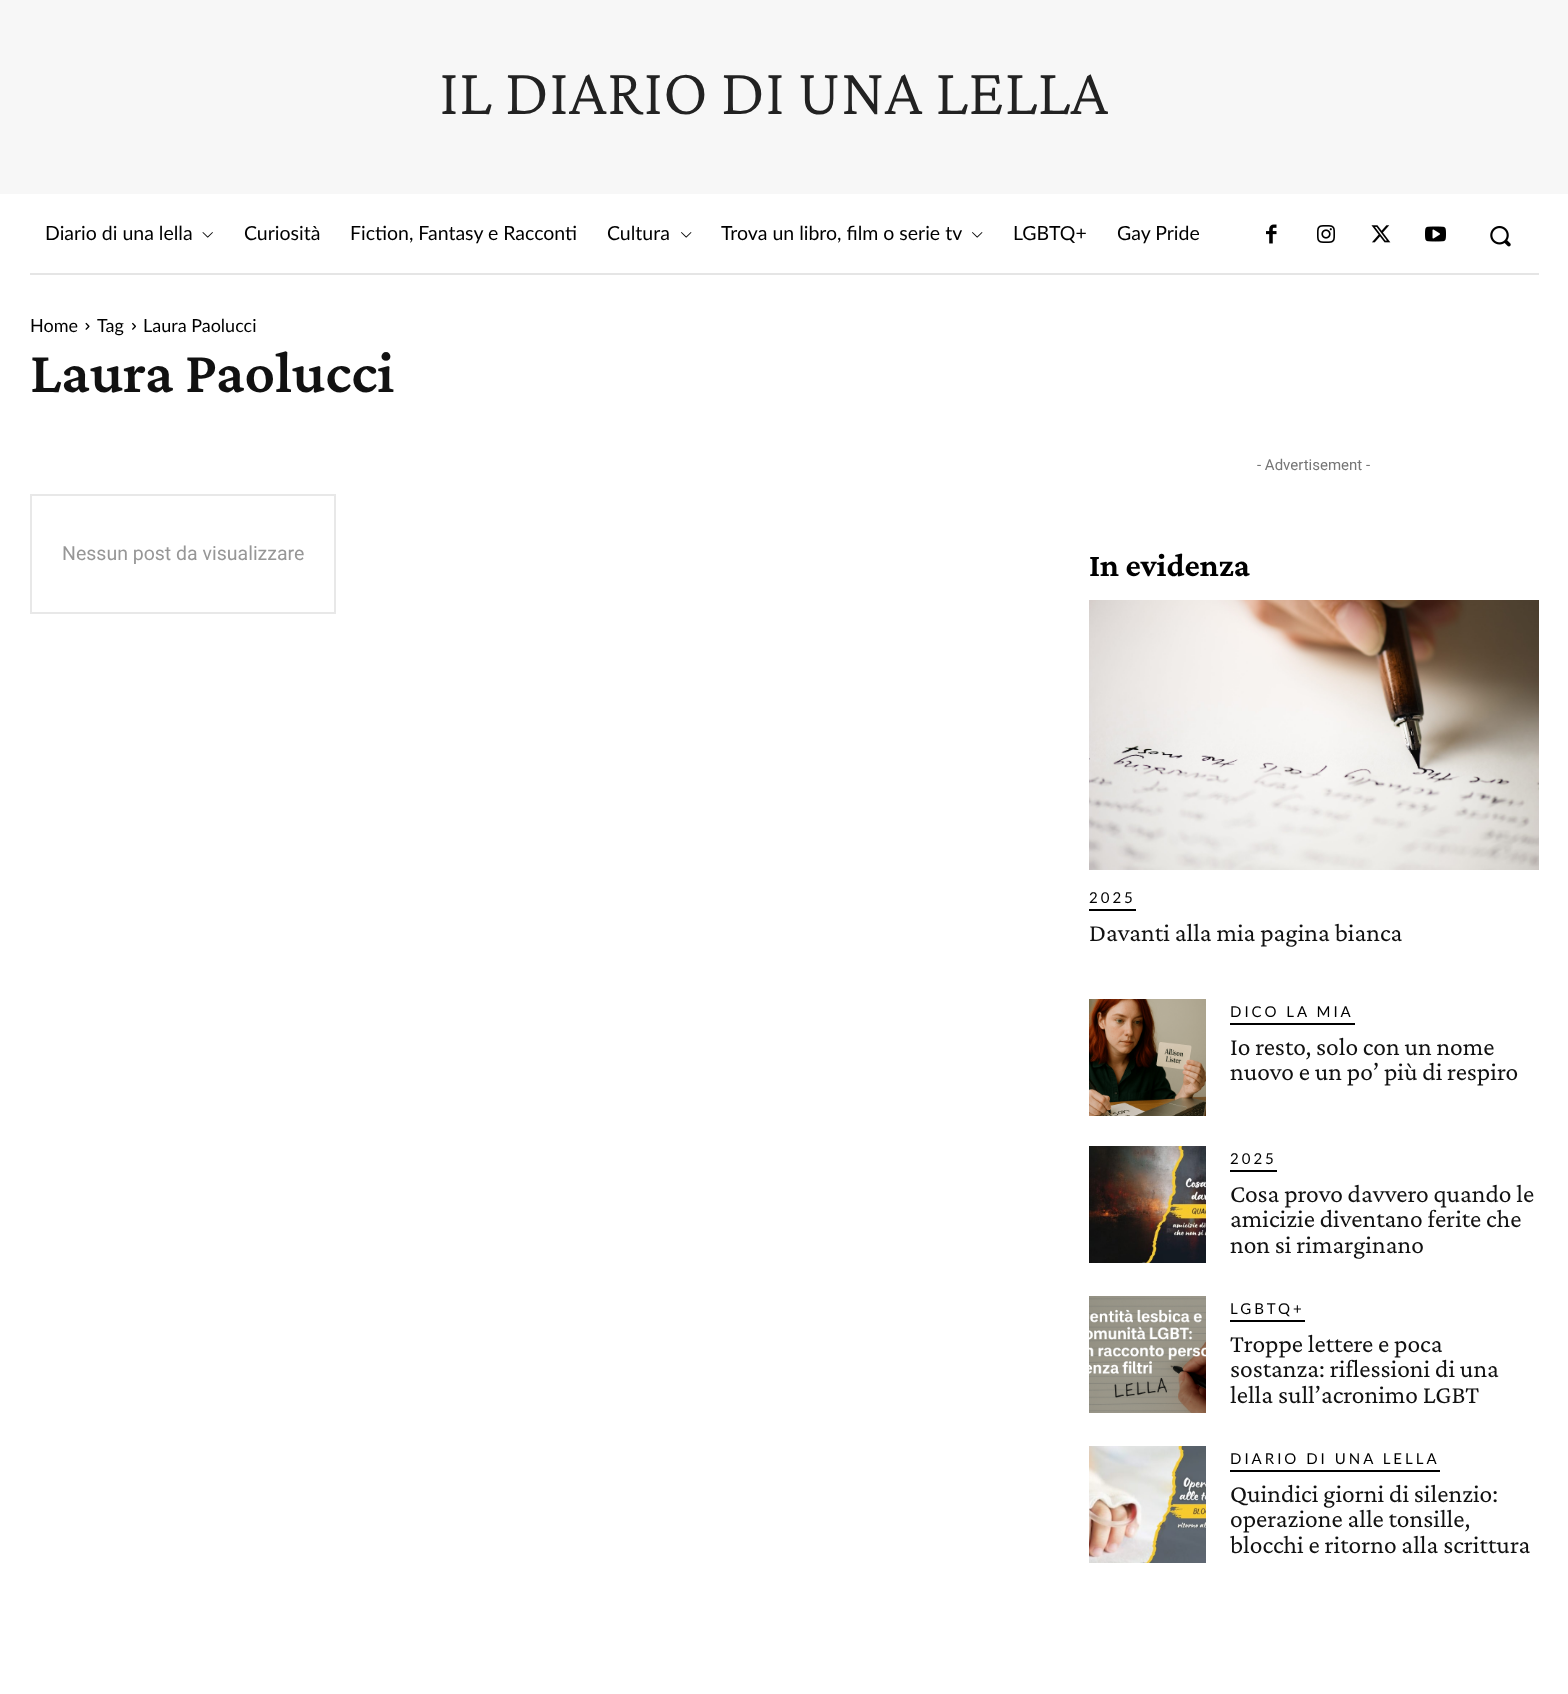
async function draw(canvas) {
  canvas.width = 1568;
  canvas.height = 1694;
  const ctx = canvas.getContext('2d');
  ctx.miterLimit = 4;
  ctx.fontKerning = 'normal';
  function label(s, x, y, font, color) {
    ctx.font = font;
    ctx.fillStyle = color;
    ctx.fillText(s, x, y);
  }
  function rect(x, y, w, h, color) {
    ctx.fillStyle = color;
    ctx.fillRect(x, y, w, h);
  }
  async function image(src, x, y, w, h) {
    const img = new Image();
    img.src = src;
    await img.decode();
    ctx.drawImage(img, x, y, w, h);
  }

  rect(0, 0, 1568, 1694, '#fff');
  rect(0, 0, 1568, 194, '#f7f7f7');
  label('IL DIARIO DI UNA LELLA', 439, 114, '300 67.5px Crimson Pro', '#222');
  label('Diario di una lella', 45, 240, '19.5px Lato', '#000');
  await image('assets/img1.png', 202, 232, 11, 6);
  label('Curiosità', 244, 240, '19.5px Lato', '#000');
  label('Fiction, Fantasy e Racconti', 350, 240, '19.5px Lato', '#000');
  label('Cultura', 607, 240, '19.5px Lato', '#000');
  await image('assets/img2.png', 681, 232, 11, 6);
  label('Trova un libro, film o serie tv', 721, 240, '19.5px Lato', '#000');
  await image('assets/img2.png', 972, 232, 11, 6);
  label('LGBTQ+', 1013, 240, '19.5px Lato', '#000');
  label('Gay Pride', 1117, 240, '19.5px Lato', '#000');
  await image('assets/img3.png', 1266, 224, 11, 20);
  await image('assets/img4.png', 1317, 225, 18, 18);
  await image('assets/img5.png', 1371, 225, 20, 18);
  await image('assets/img6.png', 1425, 226, 21, 16);
  await image('assets/img7.png', 1490, 225, 21, 22);
  rect(30, 273, 1509, 2, '#e5e5e5');
  label('Home', 30, 332, '18px Lato', '#000');
  await image('assets/img8.png', 85, 322, 5, 8);
  label('Tag', 97, 332, '18px Lato', '#000');
  await image('assets/img9.png', 132, 322, 4, 8);
  label('Laura Paolucci', 143, 332, '18px Lato', '#000');
  label('Laura Paolucci', 30, 392, '600 60px Crimson Pro', '#111');
  ctx.strokeStyle = '#e8e8e8';
  ctx.lineWidth = 2;
  ctx.strokeRect(31, 495, 304, 118);
  label('Nessun post da visualizzare', 62, 560, '19.5px Roboto', '#979797');
  label('- Advertisement -', 1257, 470, '15px Roboto', '#767676');
  label('In evidenza', 1089, 576, 'bold 33px Crimson Pro', '#000');
  await image('assets/img10.png', 1089, 600, 450, 270);
  rect(1089, 909, 47, 2, '#000');
  ctx.letterSpacing = '3px';
  label('2025', 1089, 903, '15px Lato', '#000');
  ctx.letterSpacing = '0px';
  label('Davanti alla mia pagina bianca', 1089, 941, '25.5px Crimson Pro', '#111');
  await image('assets/img11.png', 1089, 999, 117, 117);
  rect(1230, 1023, 125, 2, '#000');
  ctx.letterSpacing = '3px';
  label('DICO LA MIA', 1230, 1017, '15px Lato', '#000');
  ctx.letterSpacing = '0px';
  label('Io resto, solo con un nome', 1230, 1055, '25.5px Crimson Pro', '#111');
  label('nuovo e un po’ più di respiro', 1230, 1080, '25.5px Crimson Pro', '#111');
  await image('assets/img12.png', 1089, 1146, 117, 117);
  rect(1230, 1170, 47, 2, '#000');
  ctx.letterSpacing = '3px';
  label('2025', 1230, 1164, '15px Lato', '#000');
  ctx.letterSpacing = '0px';
  label('Cosa provo davvero quando le', 1230, 1202, '25.5px Crimson Pro', '#111');
  label('amicizie diventano ferite che', 1230, 1227, '25.5px Crimson Pro', '#111');
  label('non si rimarginano', 1230, 1253, '25.5px Crimson Pro', '#111');
  await image('assets/img13.png', 1089, 1296, 117, 117);
  rect(1230, 1320, 75, 2, '#000');
  ctx.letterSpacing = '3px';
  label('LGBTQ+', 1230, 1314, '15px Lato', '#000');
  ctx.letterSpacing = '0px';
  label('Troppe lettere e poca', 1230, 1352, '25.5px Crimson Pro', '#111');
  label('sostanza: riflessioni di una', 1230, 1377, '25.5px Crimson Pro', '#111');
  label('lella sull’acronimo LGBT', 1230, 1403, '25.5px Crimson Pro', '#111');
  await image('assets/img14.png', 1089, 1446, 117, 117);
  rect(1230, 1470, 210, 2, '#000');
  ctx.letterSpacing = '3px';
  label('DIARIO DI UNA LELLA', 1230, 1464, '15px Lato', '#000');
  ctx.letterSpacing = '0px';
  label('Quindici giorni di silenzio:', 1230, 1502, '25.5px Crimson Pro', '#111');
  label('operazione alle tonsille,', 1230, 1527, '25.5px Crimson Pro', '#111');
  label('blocchi e ritorno alla scrittura', 1230, 1553, '25.5px Crimson Pro', '#111');
}

draw(document.querySelector('canvas'));
